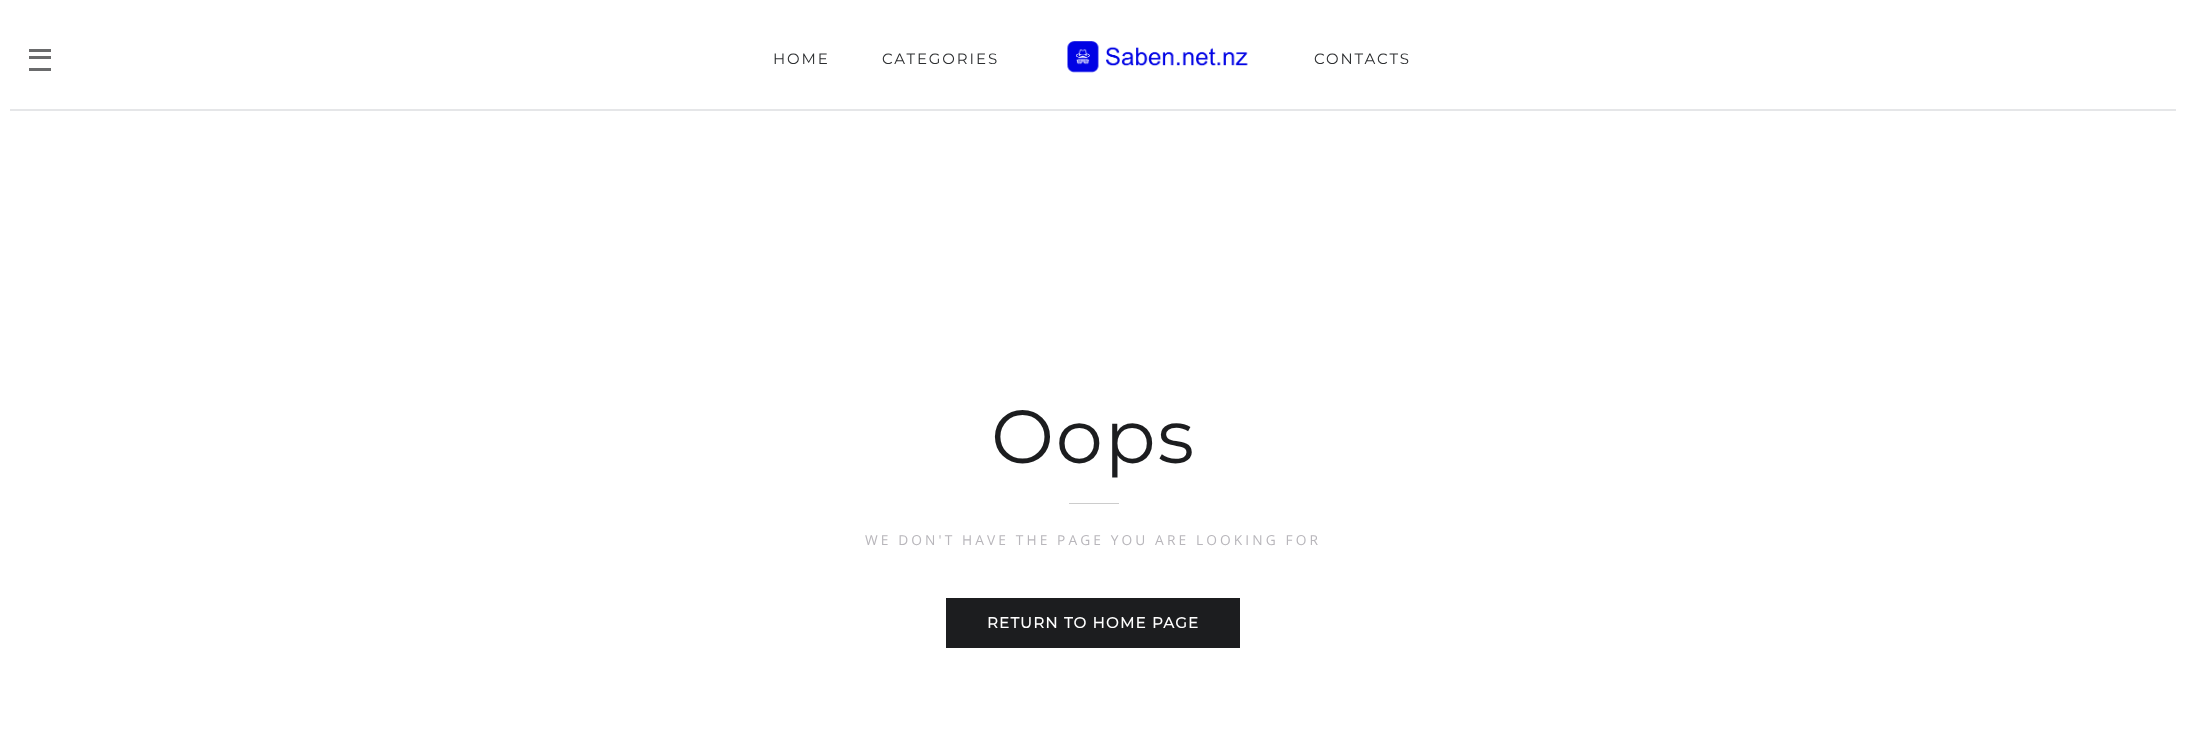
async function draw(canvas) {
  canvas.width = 2186;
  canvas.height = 734;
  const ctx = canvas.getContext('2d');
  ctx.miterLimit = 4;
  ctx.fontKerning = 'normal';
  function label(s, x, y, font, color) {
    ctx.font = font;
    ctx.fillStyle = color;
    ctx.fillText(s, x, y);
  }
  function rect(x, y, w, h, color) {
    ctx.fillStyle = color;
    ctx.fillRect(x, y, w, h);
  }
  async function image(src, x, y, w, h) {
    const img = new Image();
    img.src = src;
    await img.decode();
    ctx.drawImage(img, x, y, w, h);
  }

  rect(0, 0, 2186, 734, '#fff');
  rect(10, 109, 2166, 2, '#e5e6e8');
  rect(29, 49, 22, 3, '#6a6b6c');
  rect(29, 56, 22, 3, '#6a6b6c');
  rect(29, 68, 22, 3, '#6a6b6c');
  ctx.letterSpacing = '1.9px';
  label('HOME', 773, 64, '100 15px Montserrat', '#2c2e30');
  label('CATEGORIES', 882, 64, '100 15px Montserrat', '#2c2e30');
  await image('assets/img1.png', 1067, 41, 181, 32);
  label('CONTACTS', 1314, 64, '100 15px Montserrat', '#2c2e30');
  label('Oops', 991, 463, '100 75px Montserrat', '#1c1d1f');
  rect(1069, 503, 50, 1, '#ccc');
  ctx.letterSpacing = '3.1px';
  label('WE DON\'T HAVE THE PAGE YOU ARE LOOKING FOR', 865, 545, '13.75px Open Sans', '#b8b6bb');
  rect(946, 598, 294, 50, '#1c1d1f');
  ctx.letterSpacing = '1.25px';
  label('RETURN TO HOME PAGE', 987, 628, 'bold 15px Montserrat', '#fff');
}

draw(document.querySelector('canvas'));
